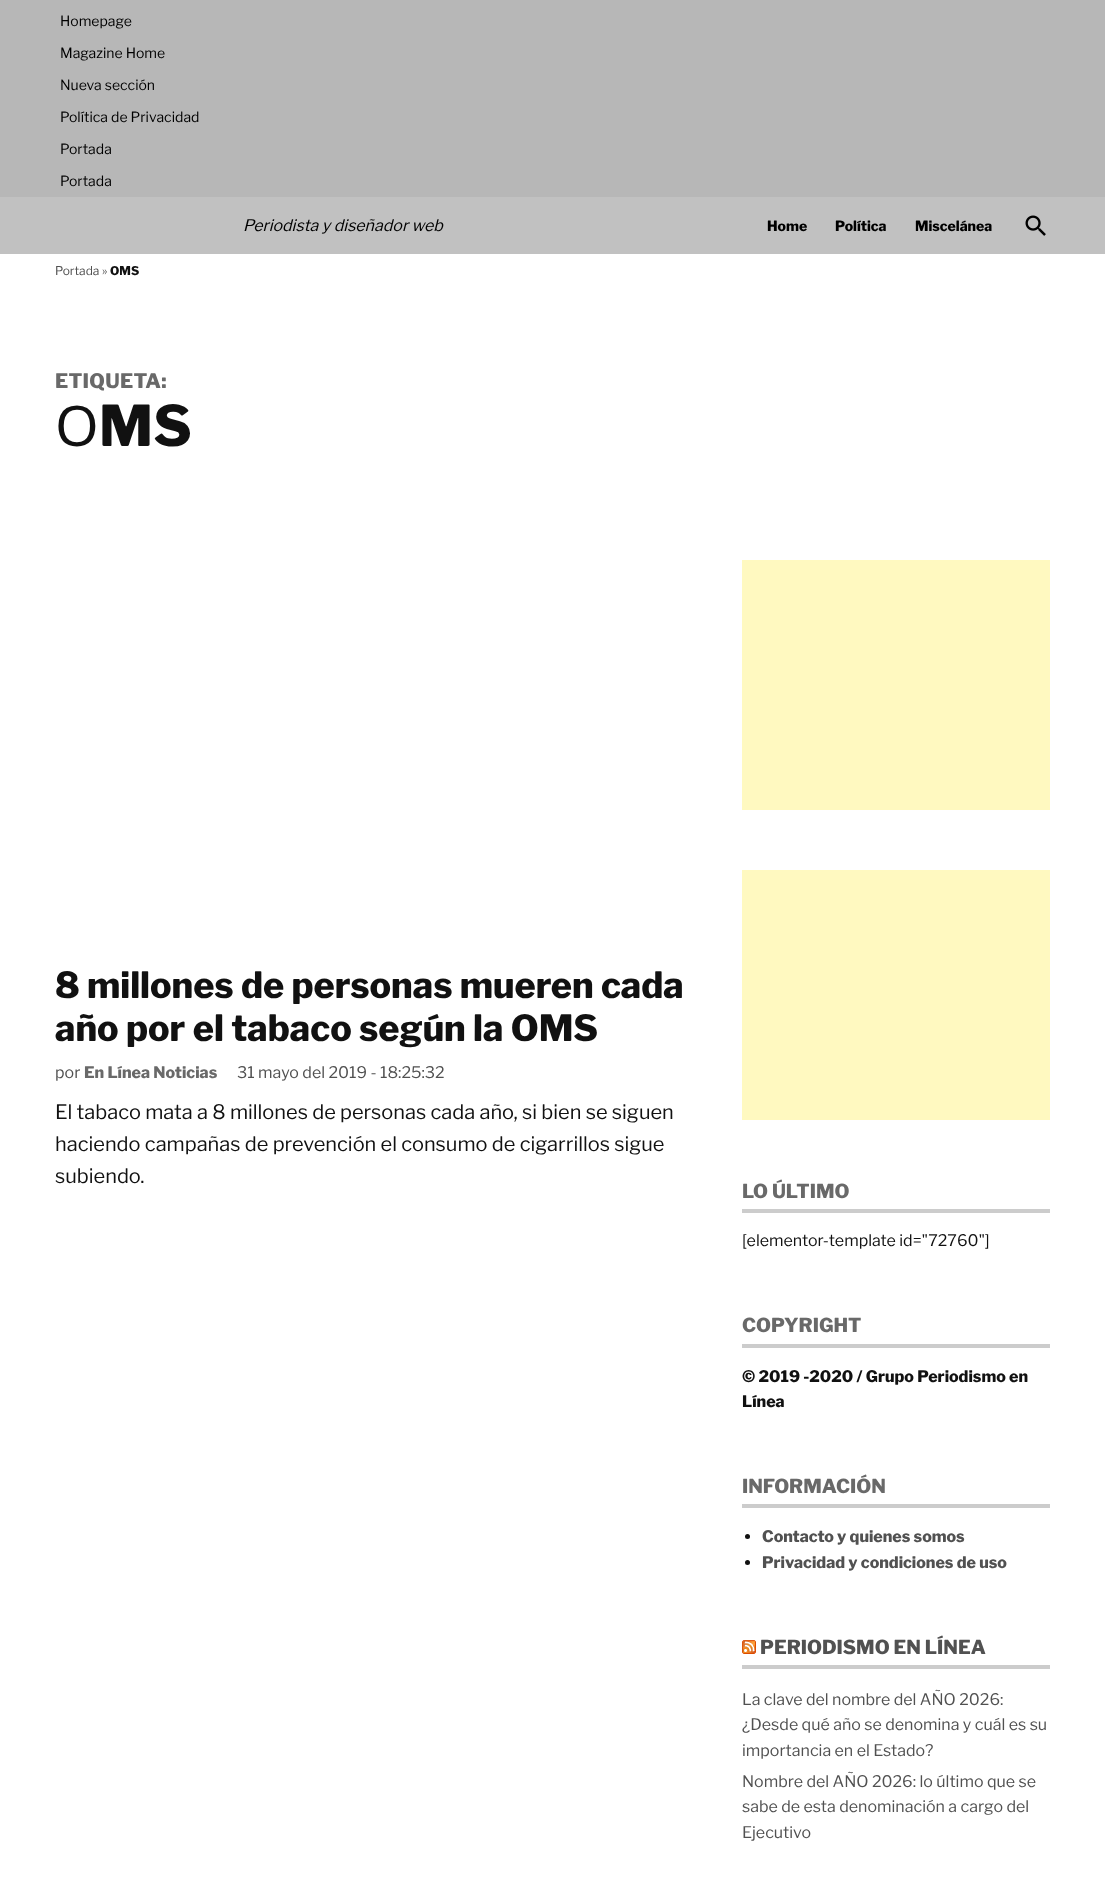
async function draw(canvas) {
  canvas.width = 1105;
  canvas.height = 1883;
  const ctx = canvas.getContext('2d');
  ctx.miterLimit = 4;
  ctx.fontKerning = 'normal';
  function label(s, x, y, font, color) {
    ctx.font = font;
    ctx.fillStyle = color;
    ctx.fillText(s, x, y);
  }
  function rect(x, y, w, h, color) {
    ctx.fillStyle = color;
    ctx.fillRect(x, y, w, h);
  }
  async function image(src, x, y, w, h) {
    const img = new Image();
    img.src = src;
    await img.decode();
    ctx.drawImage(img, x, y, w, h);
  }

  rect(0, 0, 1105, 1883, '#fff');
  rect(0, 0, 1105, 197, '#b7b7b7');
  label('Homepage', 60, 26, '14px Libre Franklin', '#000');
  label('Magazine Home', 60, 58, '14px Libre Franklin', '#000');
  label('Nueva sección', 60, 90, '14px Libre Franklin', '#000');
  label('Política de Privacidad', 60, 122, '14px Libre Franklin', '#000');
  label('Portada', 60, 154, '14px Libre Franklin', '#000');
  label('Portada', 60, 186, '14px Libre Franklin', '#000');
  rect(0, 197, 1105, 57, '#c1c1c1');
  label('Periodista y diseñador web', 243, 231, 'italic 16px Libre Franklin', '#000');
  label('Home', 767, 231, '800 14px Libre Franklin', '#000');
  label('Política', 835, 231, '800 14px Libre Franklin', '#000');
  label('Miscelánea', 915, 231, '800 14px Libre Franklin', '#000');
  await image('assets/img1.png', 1025, 215, 21, 21);
  label('Portada »', 55, 275, '12px Libre Franklin', '#515151');
  label('OMS', 110, 275, '800 12px Libre Franklin', '#111');
  ctx.letterSpacing = '0.25px';
  label('ETIQUETA:', 55, 388, '800 20px Libre Franklin', '#696969');
  label('O', 55, 446, '56px Noto Sans', '#111');
  label('MS', 99, 446, '800 56px Libre Franklin', '#111');
  ctx.letterSpacing = '0px';
  label('8 millones de personas mueren cada', 55, 998, '800 36px Libre Franklin', '#111');
  label('año por el tabaco según la OMS', 55, 1041, '800 36px Libre Franklin', '#111');
  label('por', 55, 1078, '16px Libre Franklin', '#515151');
  label('En Línea Noticias', 84, 1078, '800 16px Libre Franklin', '#696969');
  label('31 mayo del 2019 - 18:25:32', 237, 1078, '16px Libre Franklin', '#515151');
  label('El tabaco mata a 8 millones de personas cada año, si bien se siguen', 55, 1119, '20px Libre Franklin', '#111');
  label('haciendo campañas de prevención el consumo de cigarrillos sigue', 55, 1151, '20px Libre Franklin', '#111');
  label('subiendo.', 55, 1183, '20px Libre Franklin', '#111');
  rect(742, 560, 308, 250, '#fff9c0');
  rect(742, 870, 308, 250, '#fff9c0');
  rect(742, 1209, 308, 4, '#ccc');
  label('LO ÚLTIMO', 742, 1198, '800 19.25px Libre Franklin', '#696969');
  label('[elementor-template id="72760"]', 742, 1246, '16px Libre Franklin', '#111');
  rect(742, 1344, 308, 4, '#ccc');
  label('COPYRIGHT', 742, 1332, '800 19.25px Libre Franklin', '#696969');
  label('© 2019 -2020 / Grupo Periodismo en', 742, 1382, '800 16px Libre Franklin', '#111');
  label('Línea', 742, 1407, '800 16px Libre Franklin', '#111');
  rect(742, 1504, 308, 4, '#ccc');
  label('INFORMACIÓN', 742, 1493, '800 19.25px Libre Franklin', '#696969');
  ctx.fillStyle = '#111';
  ctx.beginPath();
  ctx.arc(747.5, 1536.5, 2.5, 0, 2 * Math.PI);
  ctx.fill();
  label('Contacto y quienes somos', 762, 1542, '800 16px Libre Franklin', '#515151');
  ctx.fillStyle = '#111';
  ctx.beginPath();
  ctx.arc(747.5, 1562.5, 2.5, 0, 2 * Math.PI);
  ctx.fill();
  label('Privacidad y condiciones de uso', 762, 1568, '800 16px Libre Franklin', '#515151');
  rect(742, 1665, 308, 4, '#ccc');
  await image('assets/img2.png', 742, 1640, 14, 14);
  label('PERIODISMO EN LÍNEA', 760, 1654, '800 19.25px Libre Franklin', '#515151');
  label('La clave del nombre del AÑO 2026:', 742, 1705, '16px Libre Franklin', '#515151');
  label('¿Desde qué año se denomina y cuál es su', 742, 1730, '16px Libre Franklin', '#515151');
  label('importancia en el Estado?', 742, 1756, '16px Libre Franklin', '#515151');
  label('Nombre del AÑO 2026: lo último que se', 742, 1787, '16px Libre Franklin', '#515151');
  label('sabe de esta denominación a cargo del', 742, 1812, '16px Libre Franklin', '#515151');
  label('Ejecutivo', 742, 1838, '16px Libre Franklin', '#515151');
}

draw(document.querySelector('canvas'));
